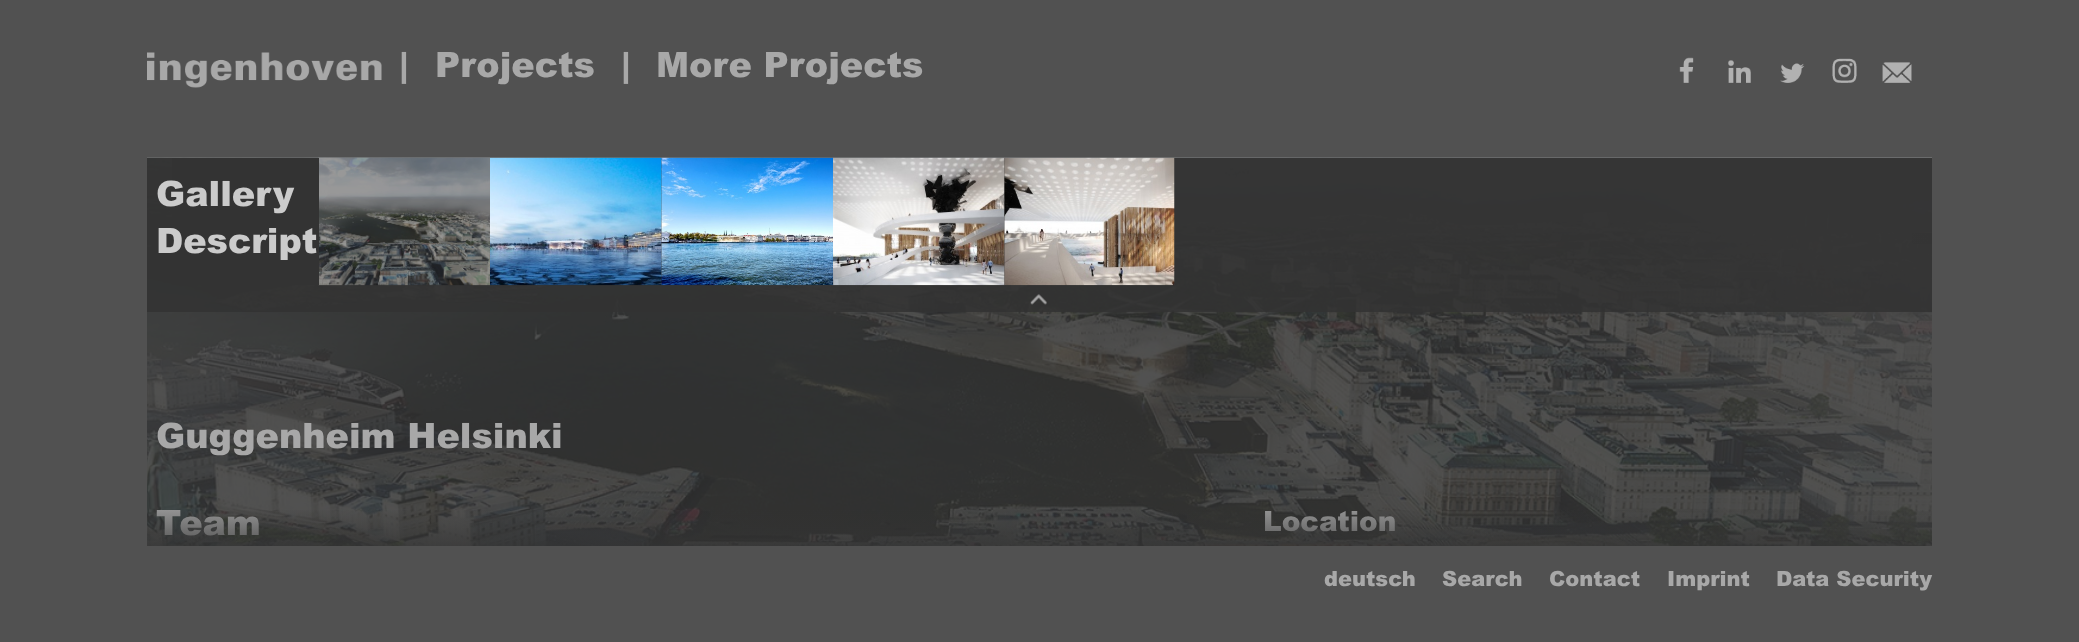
async function draw(canvas) {
  canvas.width = 2079;
  canvas.height = 642;
  const ctx = canvas.getContext('2d');
  ctx.miterLimit = 4;
  ctx.fontKerning = 'normal';
  function label(s, x, y, font, color) {
    ctx.font = font;
    ctx.fillStyle = color;
    ctx.fillText(s, x, y);
  }
  function rect(x, y, w, h, color) {
    ctx.fillStyle = color;
    ctx.fillRect(x, y, w, h);
  }
  async function image(src, x, y, w, h) {
    const img = new Image();
    img.src = src;
    await img.decode();
    ctx.drawImage(img, x, y, w, h);
  }
  let gradient;

  rect(0, 0, 2079, 642, '#515151');
  await image('assets/img1.png', 147, 52, 235, 36);
  label('|', 399, 77, '900 35px Arial', '#a8a8a8');
  label('Projects', 435, 77, '900 35px Arial', '#a8a8a8');
  label('|', 621, 77, '900 35px Arial', '#a8a8a8');
  label('More Projects', 656, 77, '900 35px Arial', '#a8a8a8');
  await image('assets/img2.png', 1679, 57, 15, 26);
  await image('assets/img3.png', 1728, 60, 23, 23);
  await image('assets/img4.png', 1780, 63, 25, 20);
  await image('assets/img5.png', 1832, 58, 25, 25);
  await image('assets/img6.png', 1882, 62, 30, 21);
  await image('assets/img7.png', 147, 157, 1785, 389);
  rect(147, 158, 1785, 154, '#333333d9');
  await image('assets/img8.png', 318, 157, 172, 129);
  rect(172, 158, 147, 127, '#333');
  label('Gallery', 156, 206, '900 35px Arial', '#cbcbcb');
  label('Descript', 156, 253, '900 35px Arial', '#cbcbcb');
  await image('assets/img9.png', 490, 157, 172, 129);
  await image('assets/img10.png', 661, 157, 172, 129);
  await image('assets/img11.png', 833, 157, 172, 129);
  await image('assets/img12.png', 1004, 157, 171, 129);
  gradient = ctx.createLinearGradient(1827, 221, 1932, 221);
  gradient.addColorStop(0, '#363636');
  gradient.addColorStop(1, '#343434');
  ctx.fillStyle = gradient;
  ctx.fillRect(1912, 233, 20, 11);
  await image('assets/img13.png', 1030, 294, 17, 11);
  label('Guggenheim Helsinki', 156, 448, '900 35px Arial', '#a8a8a8');
  label('Team', 156, 535, '900 35px Arial', '#979797');
  label('Location', 1263, 531, '900 28px Arial', '#979797');
  gradient = ctx.createLinearGradient(1040, 507, 1040, 546);
  gradient.addColorStop(0, '#33333300');
  gradient.addColorStop(1, '#333333a6');
  ctx.fillStyle = gradient;
  ctx.fillRect(147, 510, 1785, 36);
  label('deutsch', 1324, 586, '900 21px Arial', '#a8a8a8');
  label('Search', 1442, 586, '900 21px Arial', '#a8a8a8');
  label('Contact', 1549, 586, '900 21px Arial', '#a8a8a8');
  label('Imprint', 1667, 586, '900 21px Arial', '#a8a8a8');
  label('Data Security', 1776, 586, '900 21px Arial', '#a8a8a8');
}

draw(document.querySelector('canvas'));
